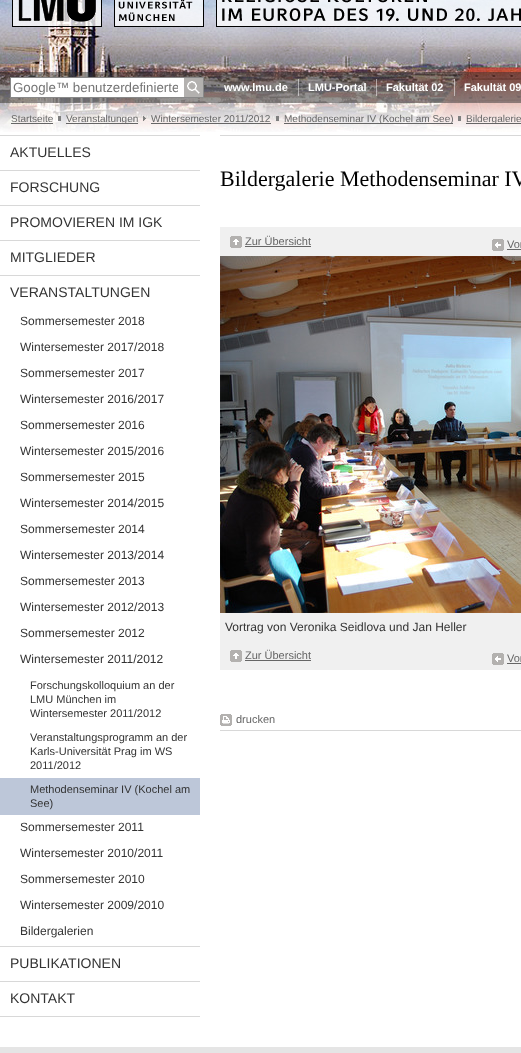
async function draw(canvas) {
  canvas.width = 521;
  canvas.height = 1053;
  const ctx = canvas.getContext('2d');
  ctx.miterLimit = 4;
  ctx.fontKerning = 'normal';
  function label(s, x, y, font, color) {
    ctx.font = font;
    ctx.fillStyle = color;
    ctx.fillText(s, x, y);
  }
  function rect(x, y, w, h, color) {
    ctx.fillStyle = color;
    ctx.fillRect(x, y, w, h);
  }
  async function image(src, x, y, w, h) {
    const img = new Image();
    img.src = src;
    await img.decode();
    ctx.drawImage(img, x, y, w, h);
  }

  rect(0, 0, 521, 1053, '#fff');
  await image('assets/img1.png', 0, 0, 521, 72);
  await image('assets/img2.png', 0, 72, 521, 31);
  rect(11, 78, 173, 19, '#fff');
  ctx.strokeStyle = '#888';
  ctx.strokeRect(10.5, 77.5, 193, 20);
  ctx.save();
  ctx.beginPath();
  ctx.rect(13, 80, 165, 15);
  ctx.clip();
  label('Google™ benutzerdefinierte', 13, 92, '13.3px Liberation Sans', '#757575');
  ctx.restore();
  await image('assets/img3.png', 184, 78, 19, 19);
  label('www.lmu.de', 224, 91, 'bold 11px Liberation Sans', '#fff');
  rect(298, 79, 1, 17, '#ffffff80');
  label('LMU-Portal', 308, 91, 'bold 11px Liberation Sans', '#fff');
  rect(376, 79, 1, 17, '#ffffff80');
  label('Fakultät 02', 386, 91, 'bold 11px Liberation Sans', '#fff');
  rect(454, 79, 1, 17, '#ffffff80');
  label('Fakultät 09', 464, 91, 'bold 11px Liberation Sans', '#fff');
  await image('assets/img4.png', 0, 103, 521, 29);
  label('Startseite', 11, 122, '10px Liberation Sans', '#666');
  rect(11, 123, 42, 1, '#666');
  rect(58, 116, 3, 5, '#7f7f7f');
  rect(66, 123, 72, 1, '#666');
  label('Veranstaltungen', 66, 122, '10px Liberation Sans', '#666');
  await image('assets/img5.png', 143, 116, 4, 5);
  label('Wintersemester 2011/2012', 151, 122, '10px Liberation Sans', '#666');
  rect(151, 123, 120, 1, '#666');
  rect(276, 116, 3, 5, '#7f7f7f');
  rect(284, 123, 169, 1, '#666');
  label('Methodenseminar IV (Kochel am See)', 284, 122, '10px Liberation Sans', '#666');
  rect(458, 116, 3, 5, '#7f7f7f');
  rect(466, 123, 55, 1, '#666');
  label('Bildergalerie', 466, 122, '10px Liberation Sans', '#666');
  rect(0, 135, 200, 1, '#d8d8d8');
  rect(0, 170, 200, 1, '#d8d8d8');
  label('AKTUELLES', 10, 157, '14px Liberation Sans', '#333');
  rect(0, 205, 200, 1, '#d8d8d8');
  label('FORSCHUNG', 10, 192, '14px Liberation Sans', '#333');
  rect(0, 240, 200, 1, '#d8d8d8');
  label('PROMOVIEREN IM IGK', 10, 227, '14px Liberation Sans', '#333');
  rect(0, 275, 200, 1, '#d8d8d8');
  label('MITGLIEDER', 10, 262, '14px Liberation Sans', '#333');
  rect(0, 946, 200, 1, '#d8d8d8');
  label('VERANSTALTUNGEN', 10, 297, '14px Liberation Sans', '#333');
  label('Sommersemester 2018', 20, 325, '12px Liberation Sans', '#333');
  label('Wintersemester 2017/2018', 20, 351, '12px Liberation Sans', '#333');
  label('Sommersemester 2017', 20, 377, '12px Liberation Sans', '#333');
  label('Wintersemester 2016/2017', 20, 403, '12px Liberation Sans', '#333');
  label('Sommersemester 2016', 20, 429, '12px Liberation Sans', '#333');
  label('Wintersemester 2015/2016', 20, 455, '12px Liberation Sans', '#333');
  label('Sommersemester 2015', 20, 481, '12px Liberation Sans', '#333');
  label('Wintersemester 2014/2015', 20, 507, '12px Liberation Sans', '#333');
  label('Sommersemester 2014', 20, 533, '12px Liberation Sans', '#333');
  label('Wintersemester 2013/2014', 20, 559, '12px Liberation Sans', '#333');
  label('Sommersemester 2013', 20, 585, '12px Liberation Sans', '#333');
  label('Wintersemester 2012/2013', 20, 611, '12px Liberation Sans', '#333');
  label('Sommersemester 2012', 20, 637, '12px Liberation Sans', '#333');
  label('Wintersemester 2011/2012', 20, 663, '12px Liberation Sans', '#333');
  label('Forschungskolloquium an der', 30, 689, '11px Liberation Sans', '#333');
  label('LMU München im', 30, 703, '11px Liberation Sans', '#333');
  label('Wintersemester 2011/2012', 30, 717, '11px Liberation Sans', '#333');
  label('Veranstaltungsprogramm an der', 30, 741, '11px Liberation Sans', '#333');
  label('Karls-Universität Prag im WS', 30, 755, '11px Liberation Sans', '#333');
  label('2011/2012', 30, 769, '11px Liberation Sans', '#333');
  rect(0, 778, 200, 37, '#bdc7d9');
  label('Methodenseminar IV (Kochel am', 30, 793, '11px Liberation Sans', '#333');
  label('See)', 30, 807, '11px Liberation Sans', '#333');
  label('Sommersemester 2011', 20, 831, '12px Liberation Sans', '#333');
  label('Wintersemester 2010/2011', 20, 857, '12px Liberation Sans', '#333');
  label('Sommersemester 2010', 20, 883, '12px Liberation Sans', '#333');
  label('Wintersemester 2009/2010', 20, 909, '12px Liberation Sans', '#333');
  label('Bildergalerien', 20, 935, '12px Liberation Sans', '#333');
  rect(0, 981, 200, 1, '#d8d8d8');
  label('PUBLIKATIONEN', 10, 968, '14px Liberation Sans', '#333');
  rect(0, 1016, 200, 1, '#d8d8d8');
  label('KONTAKT', 10, 1003, '14px Liberation Sans', '#333');
  rect(220, 135, 301, 1, '#d8d8d8');
  label('Bildergalerie Methodenseminar IV', 220, 186, '22px Liberation Serif', '#000');
  rect(220, 227, 301, 29, '#f0f0f0');
  await image('assets/img6.png', 230, 236, 12, 12);
  label('Zur Übersicht', 245, 245, '11px Liberation Sans', '#666');
  rect(245, 246, 66, 1, '#666');
  await image('assets/img7.png', 492, 239, 12, 12);
  label('Vor', 507, 248, '11px Liberation Sans', '#666');
  rect(507, 249, 14, 1, '#666');
  await image('assets/img8.png', 220, 256, 301, 357);
  rect(220, 613, 301, 57, '#f0f0f0');
  label('Vortrag von Veronika Seidlova und Jan Heller', 225, 631, '12px Liberation Sans', '#333');
  await image('assets/img6.png', 230, 650, 12, 12);
  label('Zur Übersicht', 245, 659, '11px Liberation Sans', '#666');
  rect(245, 660, 66, 1, '#666');
  await image('assets/img7.png', 492, 653, 12, 12);
  label('Vor', 507, 662, '11px Liberation Sans', '#666');
  rect(507, 663, 14, 1, '#666');
  rect(220, 730, 301, 1, '#d8d8d8');
  await image('assets/img9.png', 220, 714, 12, 12);
  label('drucken', 236, 723, '11px Liberation Sans', '#666');
  rect(0, 1047, 521, 6, '#e5e5e5');
}

draw(document.querySelector('canvas'));
